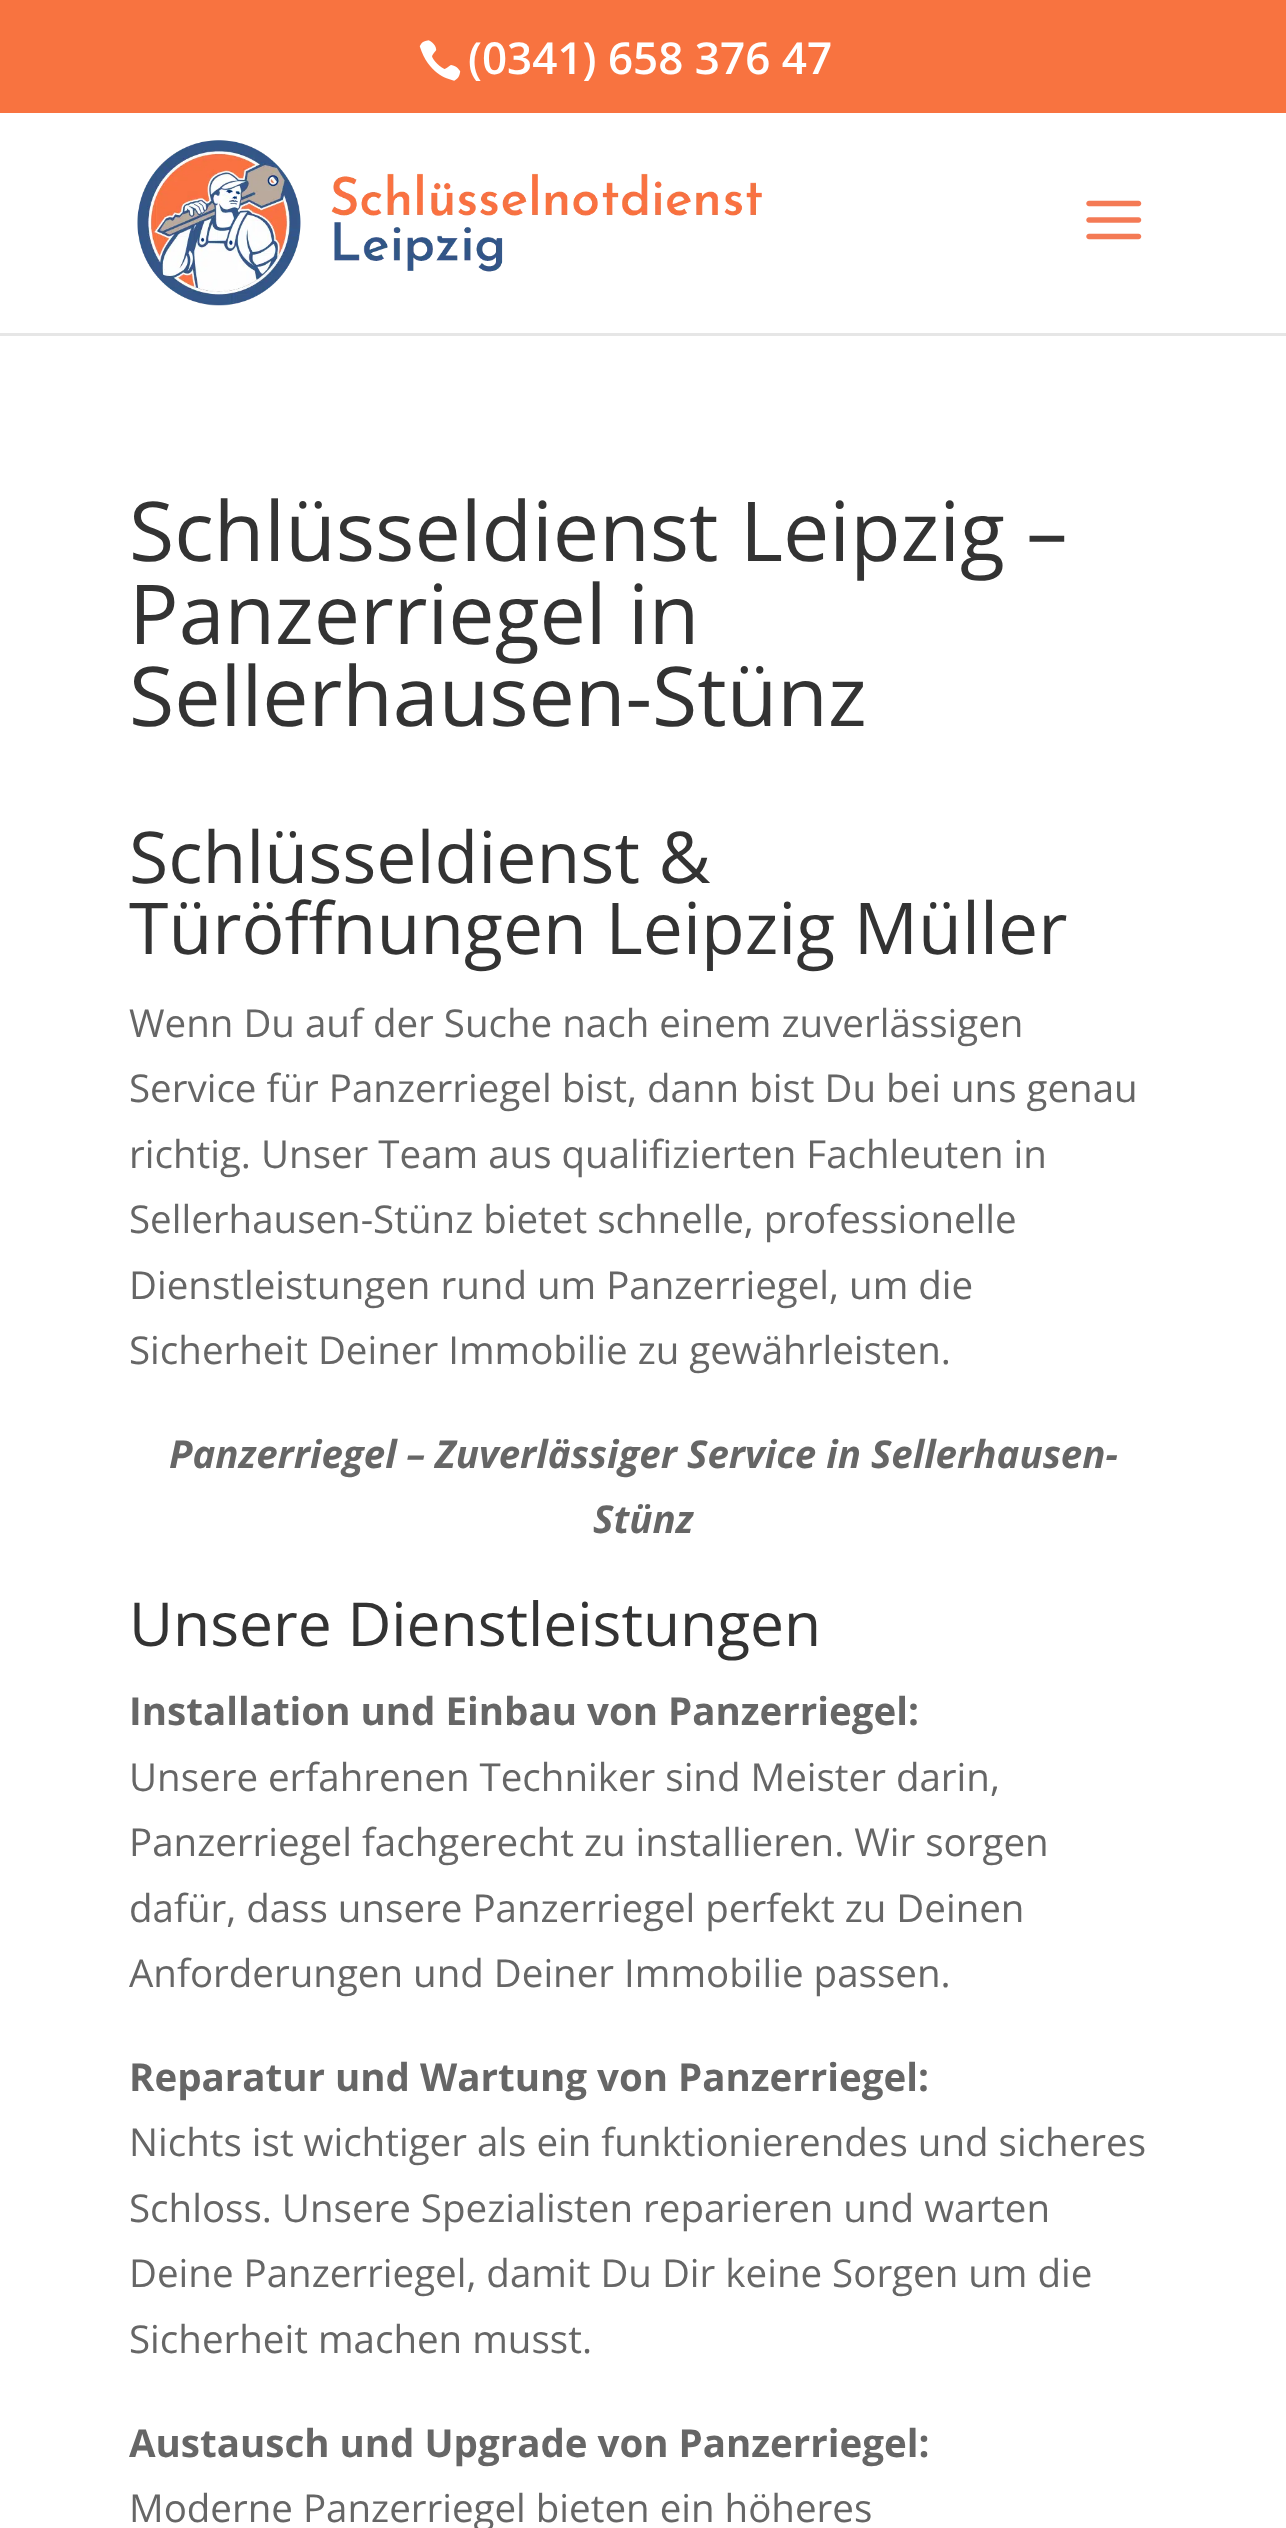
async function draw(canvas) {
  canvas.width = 1286;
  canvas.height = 2528;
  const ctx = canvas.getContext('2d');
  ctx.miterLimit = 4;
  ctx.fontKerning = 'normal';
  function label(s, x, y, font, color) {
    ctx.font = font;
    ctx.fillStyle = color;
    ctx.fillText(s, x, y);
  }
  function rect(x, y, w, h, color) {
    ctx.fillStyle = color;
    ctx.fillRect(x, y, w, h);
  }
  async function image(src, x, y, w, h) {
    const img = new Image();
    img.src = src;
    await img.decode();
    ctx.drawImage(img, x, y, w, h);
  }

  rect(0, 0, 1286, 2528, '#fff');
  rect(0, 0, 1286, 113, '#f87340');
  await image('assets/img1.png', 419, 40, 42, 41);
  label('(0341) 658 376 47', 468, 74, '600 44px Open Sans', '#fff');
  rect(0, 333, 1286, 3, '#e6e6e6');
  await image('assets/img2.png', 137, 140, 625, 166);
  await image('assets/img3.png', 1086, 200, 56, 40);
  label('Schlüsseldienst Leipzig –', 129, 561, '82.5px Open Sans', '#333');
  label('Panzerriegel in', 129, 644, '82.5px Open Sans', '#333');
  label('Sellerhausen-Stünz', 129, 726, '82.5px Open Sans', '#333');
  label('Schlüsseldienst &', 129, 883, '71.5px Open Sans', '#333');
  label('Türöffnungen Leipzig Müller', 129, 954, '71.5px Open Sans', '#333');
  label('Wenn Du auf der Suche nach einem zuverlässigen', 129, 1037, '38.5px Open Sans', '#666');
  label('Service für Panzerriegel bist, dann bist Du bei uns genau', 129, 1102, '38.5px Open Sans', '#666');
  label('richtig. Unser Team aus qualifizierten Fachleuten in', 129, 1168, '38.5px Open Sans', '#666');
  label('Sellerhausen-Stünz bietet schnelle, professionelle', 129, 1233, '38.5px Open Sans', '#666');
  label('Dienstleistungen rund um Panzerriegel, um die', 129, 1299, '38.5px Open Sans', '#666');
  label('Sicherheit Deiner Immobilie zu gewährleisten.', 129, 1364, '38.5px Open Sans', '#666');
  label('Panzerriegel – Zuverlässiger Service in Sellerhausen-', 169, 1468, 'italic bold 38.5px Open Sans', '#666');
  label('Stünz', 593, 1533, 'italic bold 38.5px Open Sans', '#666');
  label('Unsere Dienstleistungen', 129, 1646, '60.5px Open Sans', '#333');
  label('Installation und Einbau von Panzerriegel:', 129, 1725, 'bold 38.5px Open Sans', '#666');
  label('Unsere erfahrenen Techniker sind Meister darin,', 129, 1791, '38.5px Open Sans', '#666');
  label('Panzerriegel fachgerecht zu installieren. Wir sorgen', 129, 1856, '38.5px Open Sans', '#666');
  label('dafür, dass unsere Panzerriegel perfekt zu Deinen', 129, 1922, '38.5px Open Sans', '#666');
  label('Anforderungen und Deiner Immobilie passen.', 129, 1987, '38.5px Open Sans', '#666');
  label('Reparatur und Wartung von Panzerriegel:', 129, 2091, 'bold 38.5px Open Sans', '#666');
  label('Nichts ist wichtiger als ein funktionierendes und sicheres', 129, 2156, '38.5px Open Sans', '#666');
  label('Schloss. Unsere Spezialisten reparieren und warten', 129, 2222, '38.5px Open Sans', '#666');
  label('Deine Panzerriegel, damit Du Dir keine Sorgen um die', 129, 2287, '38.5px Open Sans', '#666');
  label('Sicherheit machen musst.', 129, 2353, '38.5px Open Sans', '#666');
  label('Austausch und Upgrade von Panzerriegel:', 129, 2457, 'bold 38.5px Open Sans', '#666');
  label('Moderne Panzerriegel bieten ein höheres', 129, 2522, '38.5px Open Sans', '#666');
}

draw(document.querySelector('canvas'));
